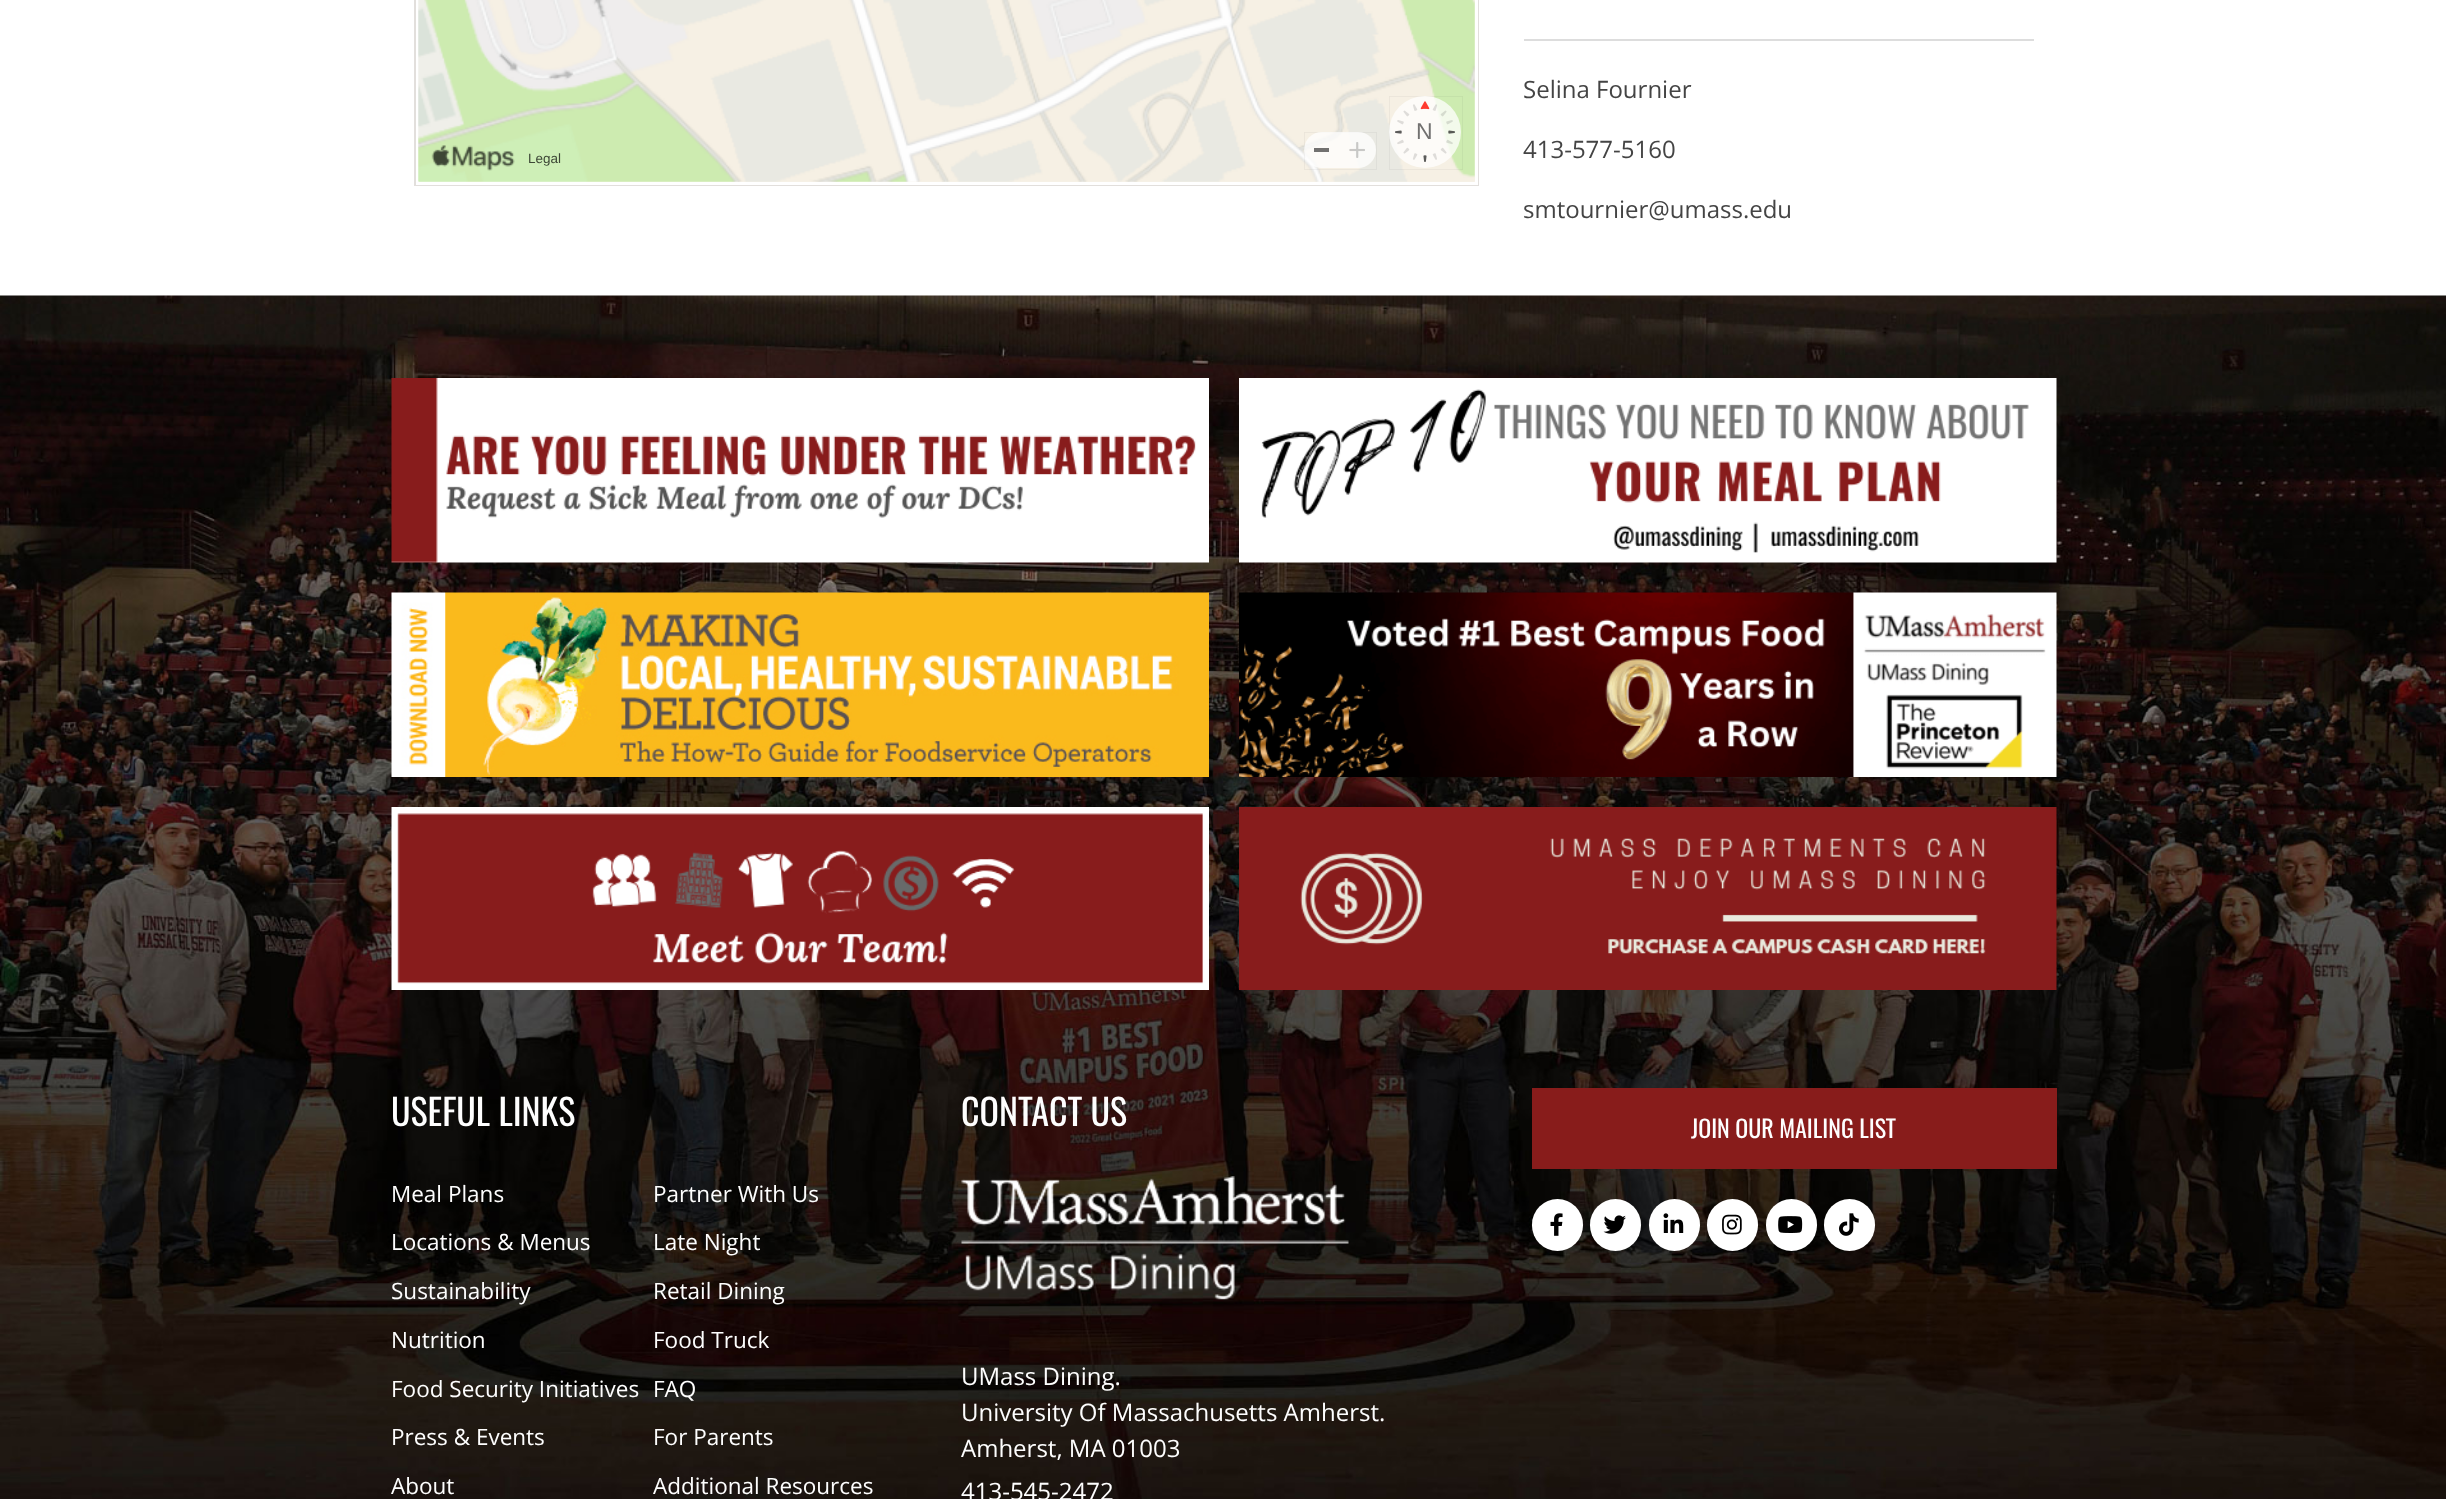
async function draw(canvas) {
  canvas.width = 2446;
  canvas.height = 1499;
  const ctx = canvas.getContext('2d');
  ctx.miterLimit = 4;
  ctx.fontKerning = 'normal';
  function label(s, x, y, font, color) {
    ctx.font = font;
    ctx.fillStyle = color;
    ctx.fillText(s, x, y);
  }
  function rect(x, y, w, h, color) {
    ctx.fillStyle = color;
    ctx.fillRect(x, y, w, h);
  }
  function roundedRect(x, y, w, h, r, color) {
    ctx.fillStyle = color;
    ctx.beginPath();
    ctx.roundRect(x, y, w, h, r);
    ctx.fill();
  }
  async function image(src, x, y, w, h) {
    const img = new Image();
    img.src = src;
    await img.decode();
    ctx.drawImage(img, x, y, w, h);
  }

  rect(0, 0, 2446, 1499, '#fff');
  ctx.strokeStyle = '#e2dfdc';
  ctx.lineWidth = 2;
  ctx.strokeRect(415, -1, 1063, 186);
  ctx.strokeStyle = '#fff';
  ctx.lineWidth = 3;
  ctx.strokeRect(417.5, -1.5, 1059, 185);
  rect(419, 0, 1056, 182, '#f9f5ed');
  await image('assets/img1.png', 418, 0, 1057, 182);
  await image('assets/img2.png', 418, 0, 1057, 182);
  ctx.strokeStyle = '#0000000d';
  ctx.lineWidth = 0.8;
  ctx.strokeRect(1304.4, 132.4, 72.2, 37.2);
  roundedRect(1304, 132, 72, 36, 18, '#ffffffbf');
  rect(1314, 148, 15, 4, '#727170');
  await image('assets/img3.png', 1349, 142, 16, 16);
  ctx.strokeRect(1389.4, 96.4, 73.2, 73.2);
  ctx.fillStyle = '#ffffffbf';
  ctx.beginPath();
  ctx.arc(1425, 132, 36, 0, 2 * Math.PI);
  ctx.fill();
  await image('assets/img4.png', 1395, 101, 60, 61);
  label('N', 1416, 139, '23px Liberation Sans', '#727170');
  await image('assets/img5.png', 431, 145, 84, 26);
  label('Legal', 528, 163, '13.5px Liberation Sans', '#3e4837');
  rect(1524, 39, 510, 2, '#ddd');
  label('Selina Fournier', 1523, 98, '24px Open Sans', '#444');
  label('413-577-5160', 1523, 158, '24px Open Sans', '#444');
  label('smtournier@umass.edu', 1523, 218, '24px Open Sans', '#444');
  await image('assets/img6.png', 0, 295, 2446, 1204);
  await image('assets/img7.png', 391, 378, 818, 185);
  await image('assets/img8.png', 1239, 378, 818, 185);
  await image('assets/img9.png', 391, 592, 818, 185);
  await image('assets/img10.png', 1239, 592, 818, 185);
  await image('assets/img11.png', 391, 807, 818, 183);
  await image('assets/img12.png', 1239, 807, 818, 183);
  label('USEFUL LINKS', 391, 1126, '36px Oswald', '#fefefe');
  label('Meal Plans', 391, 1202, '22.5px Open Sans', '#fefefe');
  label('Locations & Menus', 391, 1250, '22.5px Open Sans', '#fefefe');
  label('Sustainability', 391, 1299, '22.5px Open Sans', '#fefefe');
  label('Nutrition', 391, 1348, '22.5px Open Sans', '#fefefe');
  label('Food Security Initiatives', 391, 1397, '22.5px Open Sans', '#fefefe');
  label('Press & Events', 391, 1445, '22.5px Open Sans', '#fefefe');
  label('About', 391, 1494, '22.5px Open Sans', '#fefefe');
  label('Partner With Us', 653, 1202, '22.5px Open Sans', '#fefefe');
  label('Late Night', 653, 1250, '22.5px Open Sans', '#fefefe');
  label('Retail Dining', 653, 1299, '22.5px Open Sans', '#fefefe');
  label('Food Truck', 653, 1348, '22.5px Open Sans', '#fefefe');
  label('FAQ', 653, 1397, '22.5px Open Sans', '#fefefe');
  label('For Parents', 653, 1445, '22.5px Open Sans', '#fefefe');
  label('Additional Resources', 653, 1494, '22.5px Open Sans', '#fefefe');
  label('CONTACT US', 961, 1126, '36px Oswald', '#fefefe');
  await image('assets/img13.png', 961, 1176, 388, 124);
  label('UMass Dining.', 961, 1385, '24px Open Sans', '#fefefe');
  label('University Of Massachusetts Amherst.', 961, 1421, '24px Open Sans', '#fefefe');
  label('Amherst, MA 01003', 961, 1457, '24px Open Sans', '#fefefe');
  label('413-545-2472', 961, 1500, '24px Open Sans', '#fefefe');
  rect(1532, 1088, 525, 81, '#881c1b');
  label('JOIN OUR MAILING LIST', 1691, 1138, '24px "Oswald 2"', '#fefefe');
  roundedRect(1532, 1199, 51, 52, 25.5, '#fff');
  await image('assets/img14.png', 1550, 1213, 13, 23);
  roundedRect(1590, 1199, 51, 52, 25.5, '#fff');
  await image('assets/img15.png', 1603, 1215, 23, 19);
  roundedRect(1649, 1199, 51, 52, 25.5, '#fff');
  await image('assets/img16.png', 1663, 1213, 21, 20);
  roundedRect(1707, 1199, 51, 52, 25.5, '#fff');
  await image('assets/img17.png', 1722, 1214, 20, 21);
  roundedRect(1766, 1199, 51, 52, 25.5, '#fff');
  await image('assets/img18.png', 1778, 1216, 25, 17);
  roundedRect(1824, 1199, 51, 52, 25.5, '#fff');
  await image('assets/img19.png', 1839, 1213, 20, 23);
}

draw(document.querySelector('canvas'));
